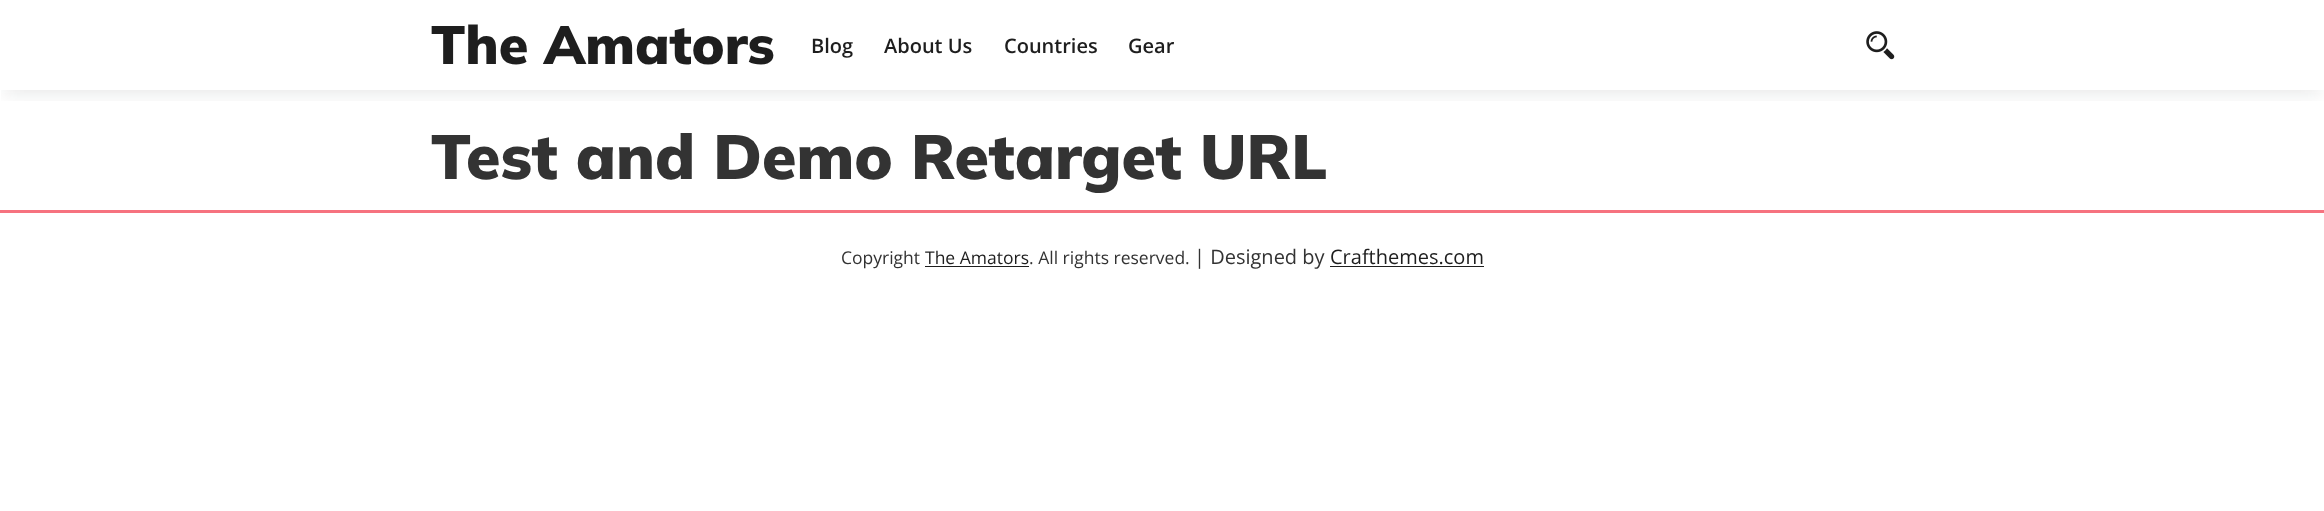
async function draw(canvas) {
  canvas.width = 2324;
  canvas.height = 511;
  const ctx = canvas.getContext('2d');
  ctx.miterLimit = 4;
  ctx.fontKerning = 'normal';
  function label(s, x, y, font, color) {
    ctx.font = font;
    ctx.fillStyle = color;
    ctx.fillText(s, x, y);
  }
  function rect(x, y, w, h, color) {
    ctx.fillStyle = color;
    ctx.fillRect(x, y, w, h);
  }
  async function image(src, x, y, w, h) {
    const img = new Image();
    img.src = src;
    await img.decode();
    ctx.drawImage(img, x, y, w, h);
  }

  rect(0, 0, 2324, 511, '#fff');
  ctx.save();
  ctx.beginPath();
  ctx.rect(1, 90, 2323, 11);
  ctx.clip();
  ctx.fillStyle = '#0e11141a';
  ctx.filter = 'blur(9.5px)';
  ctx.beginPath();
  ctx.rect(5, 13, 2315, 80);
  ctx.fill();
  ctx.filter = 'none';
  ctx.restore();
  label('The Amators', 431, 64, '900 53.75px Mulish', '#1e1e1e');
  label('Blog', 811, 53, '600 20px Open Sans', '#1e1e1e');
  label('About Us', 884, 53, '600 20px Open Sans', '#1e1e1e');
  label('Countries', 1004, 53, '600 20px Open Sans', '#1e1e1e');
  label('Gear', 1128, 53, '600 20px Open Sans', '#1e1e1e');
  await image('assets/img1.png', 1866, 31, 29, 29);
  label('Test and Demo Retarget URL', 431, 179, '900 62.5px Mulish', '#333');
  rect(0, 210, 2324, 3, '#f6727f');
  label('Copyright', 841, 264, '17.5px Open Sans', '#333');
  label('The Amators', 925, 264, '17.5px Open Sans', '#1e1e1e');
  rect(925, 266, 104, 1, '#1e1e1e');
  label('. All rights reserved.', 1029, 264, '17.5px Open Sans', '#333');
  label('| Designed by', 1194, 264, '20px Open Sans', '#333');
  label('Crafthemes.com', 1330, 264, '20px Open Sans', '#1e1e1e');
  rect(1330, 266, 154, 1, '#1e1e1e');
}

draw(document.querySelector('canvas'));
